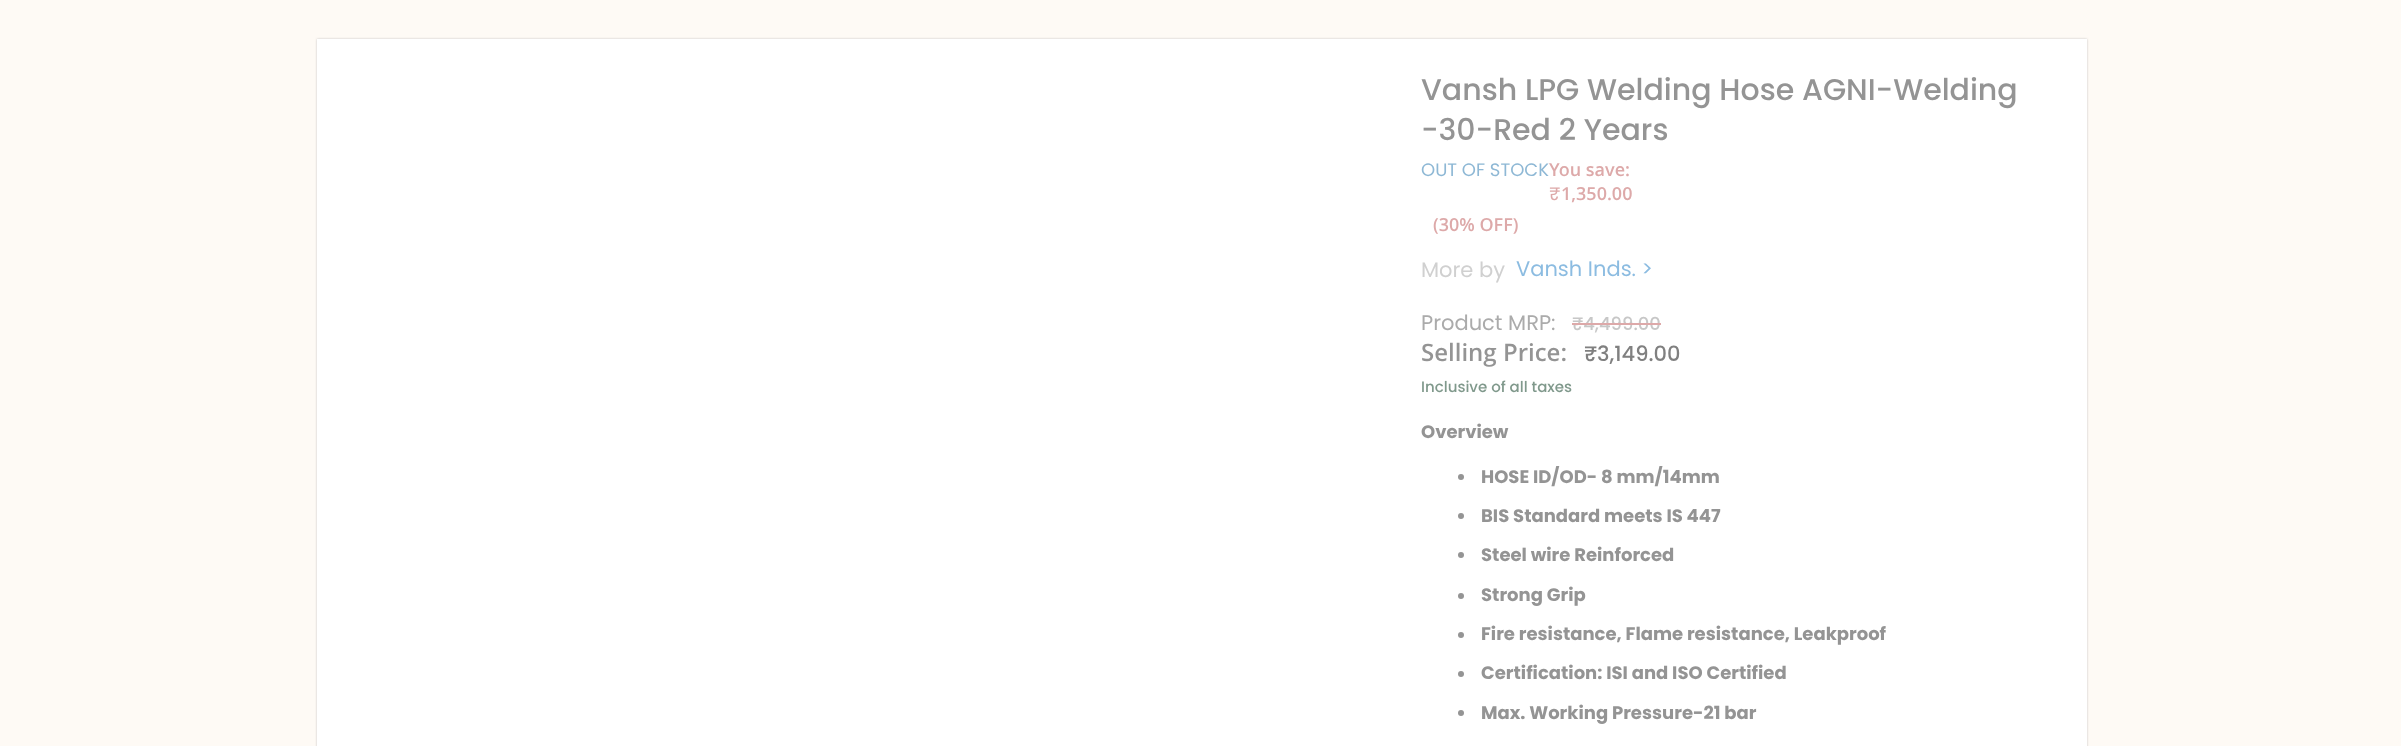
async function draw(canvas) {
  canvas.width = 2401;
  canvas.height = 746;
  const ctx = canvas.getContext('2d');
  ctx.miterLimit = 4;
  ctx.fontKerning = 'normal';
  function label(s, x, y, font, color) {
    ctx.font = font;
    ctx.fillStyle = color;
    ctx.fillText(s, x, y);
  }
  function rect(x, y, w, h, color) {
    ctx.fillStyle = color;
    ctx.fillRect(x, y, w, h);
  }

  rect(0, 0, 2401, 746, '#fefaf5');
  ctx.fillStyle = '#c6c3c3';
  ctx.filter = 'blur(1px)';
  ctx.beginPath();
  ctx.rect(317, 39, 1770, 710);
  ctx.fill();
  ctx.filter = 'none';
  rect(317, 39, 1770, 707, '#fff');
  label('Vansh LPG Welding Hose AGNI-Welding', 1421, 100, '500 30px Poppins', '#949494');
  label('-30-Red 2 Years', 1421, 140, '500 30px Poppins', '#949494');
  label('OUT OF STOCK', 1421, 176, '18px Poppins', '#8eb8d5');
  label('You save:', 1549, 176, '600 18px Open Sans', '#dda9a9');
  label('₹', 1549, 200, '18px "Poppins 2"', '#dda9a9');
  label('1,350.00', 1561, 200, '600 18px Open Sans', '#dda9a9');
  label('(30% OFF)', 1433, 231, '600 18px Open Sans', '#dda9a9');
  label('More by', 1421, 277, '21px Poppins', '#d0d0d0');
  label('Vansh Inds. >', 1516, 276, '21px Poppins', '#8cbce1');
  label('Product MRP:', 1421, 330, '21px Poppins', '#ababab');
  label('₹4,499.00', 1572, 330, '500 18px Poppins', '#c7c7c7');
  rect(1572, 323, 89, 2, '#dda9a9');
  label('Selling Price:', 1421, 361, '600 24px Open Sans', '#949494');
  label('₹3,149.00', 1584, 361, '500 21px Poppins', '#808080');
  label('Inclusive of all taxes', 1421, 392, '500 15px Poppins', '#80998c');
  label('Overview', 1421, 438, 'bold 18px Poppins', '#949494');
  ctx.beginPath();
  ctx.arc(1461, 477, 3, 0, 2 * Math.PI);
  ctx.fill();
  label('HOSE ID/OD- 8 mm/14mm', 1481, 483, 'bold 18px Poppins', '#949494');
  ctx.beginPath();
  ctx.arc(1461, 516, 3, 0, 2 * Math.PI);
  ctx.fill();
  label('BIS Standard meets IS 447', 1481, 522, 'bold 18px Poppins', '#949494');
  ctx.beginPath();
  ctx.arc(1461, 555, 3, 0, 2 * Math.PI);
  ctx.fill();
  label('Steel wire Reinforced', 1481, 561, 'bold 18px Poppins', '#949494');
  ctx.beginPath();
  ctx.arc(1461, 596, 3, 0, 2 * Math.PI);
  ctx.fill();
  label('Strong Grip', 1481, 601, 'bold 18px Poppins', '#949494');
  ctx.beginPath();
  ctx.arc(1461, 635, 3, 0, 2 * Math.PI);
  ctx.fill();
  label('Fire resistance, Flame resistance, Leakproof', 1481, 640, 'bold 18px Poppins', '#949494');
  ctx.beginPath();
  ctx.arc(1461, 674, 3, 0, 2 * Math.PI);
  ctx.fill();
  label('Certification: ISI and ISO Certified', 1481, 679, 'bold 18px Poppins', '#949494');
  ctx.beginPath();
  ctx.arc(1461, 713, 3, 0, 2 * Math.PI);
  ctx.fill();
  label('Max. Working Pressure-21 bar', 1481, 719, 'bold 18px Poppins', '#949494');
}

draw(document.querySelector('canvas'));
